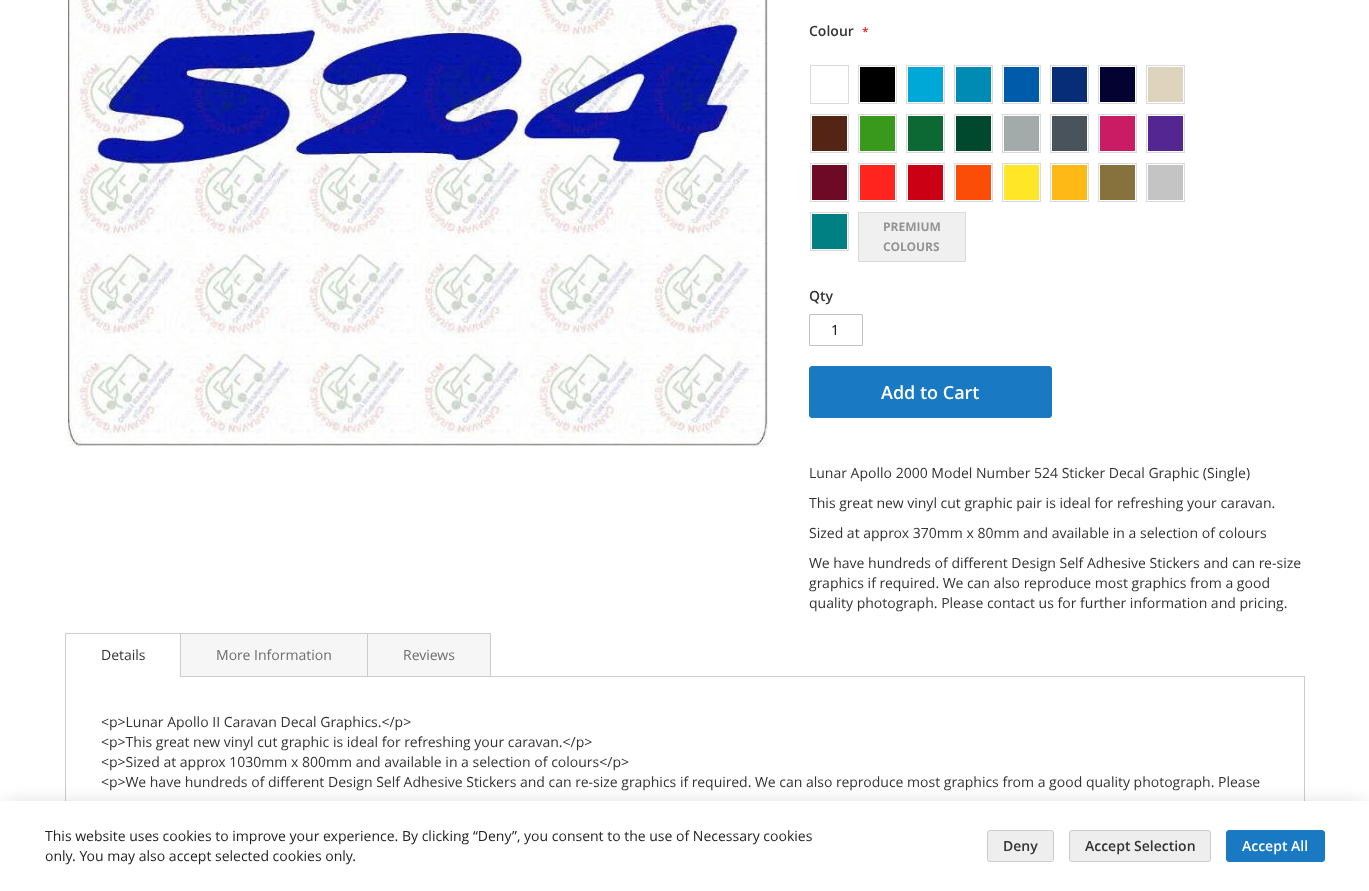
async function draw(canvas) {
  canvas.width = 1369;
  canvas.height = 891;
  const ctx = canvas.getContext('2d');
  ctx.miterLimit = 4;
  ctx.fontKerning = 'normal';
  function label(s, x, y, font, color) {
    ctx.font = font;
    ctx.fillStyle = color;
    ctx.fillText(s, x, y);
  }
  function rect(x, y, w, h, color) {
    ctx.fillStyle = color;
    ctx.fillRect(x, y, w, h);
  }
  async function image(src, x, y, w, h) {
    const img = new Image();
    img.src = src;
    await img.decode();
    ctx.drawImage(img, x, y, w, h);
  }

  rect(0, 0, 1369, 891, '#fff');
  await image('assets/img1.png', 68, 0, 700, 447);
  label('Colour', 809, 36, '600 14px Open Sans', '#333');
  label('*', 862, 36, '600 12px Open Sans', '#e02b27');
  ctx.strokeStyle = '#dadada';
  ctx.strokeRect(810.5, 65.5, 38, 38);
  rect(860, 67, 35, 35, '#000');
  ctx.strokeRect(858.5, 65.5, 38, 38);
  rect(908, 67, 35, 35, '#00a8d7');
  ctx.strokeRect(906.5, 65.5, 38, 38);
  rect(956, 67, 35, 35, '#008bb4');
  ctx.strokeRect(954.5, 65.5, 38, 38);
  rect(1004, 67, 35, 35, '#005baa');
  ctx.strokeRect(1002.5, 65.5, 38, 38);
  rect(1052, 67, 35, 35, '#072d76');
  ctx.strokeRect(1050.5, 65.5, 38, 38);
  rect(1100, 67, 35, 35, '#040231');
  ctx.strokeRect(1098.5, 65.5, 38, 38);
  rect(1148, 67, 35, 35, '#ded3bd');
  ctx.strokeRect(1146.5, 65.5, 38, 38);
  rect(812, 116, 35, 35, '#542515');
  ctx.strokeRect(810.5, 114.5, 38, 38);
  rect(860, 116, 35, 35, '#39991c');
  ctx.strokeRect(858.5, 114.5, 38, 38);
  rect(908, 116, 35, 35, '#0c6934');
  ctx.strokeRect(906.5, 114.5, 38, 38);
  rect(956, 116, 35, 35, '#00492e');
  ctx.strokeRect(954.5, 114.5, 38, 38);
  rect(1004, 116, 35, 35, '#a2abaa');
  ctx.strokeRect(1002.5, 114.5, 38, 38);
  rect(1052, 116, 35, 35, '#49535c');
  ctx.strokeRect(1050.5, 114.5, 38, 38);
  rect(1100, 116, 35, 35, '#ca1c64');
  ctx.strokeRect(1098.5, 114.5, 38, 38);
  rect(1148, 116, 35, 35, '#542692');
  ctx.strokeRect(1146.5, 114.5, 38, 38);
  rect(812, 165, 35, 35, '#6e0a26');
  ctx.strokeRect(810.5, 163.5, 38, 38);
  rect(860, 165, 35, 35, '#ff241e');
  ctx.strokeRect(858.5, 163.5, 38, 38);
  rect(908, 165, 35, 35, '#cb0014');
  ctx.strokeRect(906.5, 163.5, 38, 38);
  rect(956, 165, 35, 35, '#fb4d08');
  ctx.strokeRect(954.5, 163.5, 38, 38);
  rect(1004, 165, 35, 35, '#ffe627');
  ctx.strokeRect(1002.5, 163.5, 38, 38);
  rect(1052, 165, 35, 35, '#feb916');
  ctx.strokeRect(1050.5, 163.5, 38, 38);
  rect(1100, 165, 35, 35, '#87723d');
  ctx.strokeRect(1098.5, 163.5, 38, 38);
  rect(1148, 165, 35, 35, '#c4c4c4');
  ctx.strokeRect(1146.5, 163.5, 38, 38);
  rect(812, 214, 35, 35, '#008083');
  ctx.strokeRect(810.5, 212.5, 38, 38);
  ctx.fillStyle = '#f0f0f0';
  ctx.beginPath();
  ctx.rect(858.5, 212.5, 107, 49);
  ctx.fill();
  ctx.stroke();
  label('PREMIUM', 883, 231, 'bold 12px Open Sans', '#949494');
  label('COLOURS', 883, 251, 'bold 12px Open Sans', '#949494');
  label('Qty', 809, 301, '600 14px Open Sans', '#333');
  ctx.beginPath();
  ctx.roundRect(809.5, 314.5, 53, 31, 0.5);
  ctx.strokeStyle = '#c2c2c2';
  ctx.stroke();
  label('1', 831, 335, '14px Open Sans', '#000');
  ctx.fillStyle = '#1979c3';
  ctx.beginPath();
  ctx.roundRect(809.5, 366.5, 242, 51, 2.5);
  ctx.fill();
  ctx.strokeStyle = '#1979c3';
  ctx.stroke();
  label('Add to Cart', 881, 399, '600 18px Open Sans', '#fff');
  label('Lunar Apollo 2000 Model Number 524 Sticker Decal Graphic (Single)', 809, 478, '14px Open Sans', '#333');
  label('This great new vinyl cut graphic pair is ideal for refreshing your caravan.', 809, 508, '14px Open Sans', '#333');
  label('Sized at approx 370mm x 80mm and available in a selection of colours', 809, 538, '14px Open Sans', '#333');
  label('We have hundreds of different Design Self Adhesive Stickers and can re-size', 809, 568, '14px Open Sans', '#333');
  label('graphics if required. We can also reproduce most graphics from a good', 809, 588, '14px Open Sans', '#333');
  label('quality photograph. Please contact us for further information and pricing.', 809, 608, '14px Open Sans', '#333');
  ctx.strokeStyle = '#ccc';
  ctx.strokeRect(65.5, 676.5, 1239, 181);
  rect(66, 676, 114, 1, '#fff');
  rect(65, 633, 426, 1, '#ccc');
  rect(65, 633, 1, 44, '#ccc');
  label('Details', 101, 660, '14px Open Sans', '#333');
  rect(181, 634, 186, 42, '#f6f6f6');
  rect(180, 633, 1, 43, '#ccc');
  label('More Information', 216, 660, '14px Open Sans', '#6d6d6d');
  rect(368, 634, 122, 42, '#f6f6f6');
  rect(490, 633, 1, 43, '#ccc');
  rect(367, 633, 1, 43, '#ccc');
  label('Reviews', 403, 660, '14px Open Sans', '#6d6d6d');
  label('<p>Lunar Apollo II Caravan Decal Graphics.<\/p>', 101, 727, '14px Open Sans', '#333');
  label('<p>This great new vinyl cut graphic is ideal for refreshing your caravan.<\/p>', 101, 747, '14px Open Sans', '#333');
  label('<p>Sized at approx 1030mm x 800mm and available in a selection of colours<\/p>', 101, 767, '14px Open Sans', '#333');
  label('<p>We have hundreds of different Design Self Adhesive Stickers and can re-size graphics if required. We can also reproduce most graphics from a good quality photograph. Please', 101, 787, '14px Open Sans', '#333');
  ctx.fillStyle = '#00000033';
  ctx.filter = 'blur(10px)';
  ctx.beginPath();
  ctx.rect(5, 806, 1359, 80);
  ctx.fill();
  ctx.filter = 'none';
  rect(0, 801, 1369, 90, '#fff');
  label('This website uses cookies to improve your experience. By clicking “Deny”, you consent to the use of Necessary cookies', 45, 841, '14px Open Sans', '#222');
  label('only. You may also accept selected cookies only.', 45, 861, '14px Open Sans', '#222');
  ctx.fillStyle = '#eee';
  ctx.beginPath();
  ctx.roundRect(987.5, 830.5, 66, 31, 2.5);
  ctx.fill();
  ctx.stroke();
  label('Deny', 1003, 851, '600 14px Open Sans', '#333');
  ctx.fillStyle = '#eee';
  ctx.beginPath();
  ctx.roundRect(1069.5, 830.5, 141, 31, 2.5);
  ctx.fill();
  ctx.stroke();
  label('Accept Selection', 1085, 851, '600 14px Open Sans', '#333');
  ctx.fillStyle = '#1979c3';
  ctx.beginPath();
  ctx.roundRect(1226.5, 830.5, 98, 31, 2.5);
  ctx.fill();
  ctx.strokeStyle = '#1979c3';
  ctx.stroke();
  label('Accept All', 1242, 851, '600 14px Open Sans', '#fff');
}

draw(document.querySelector('canvas'));
